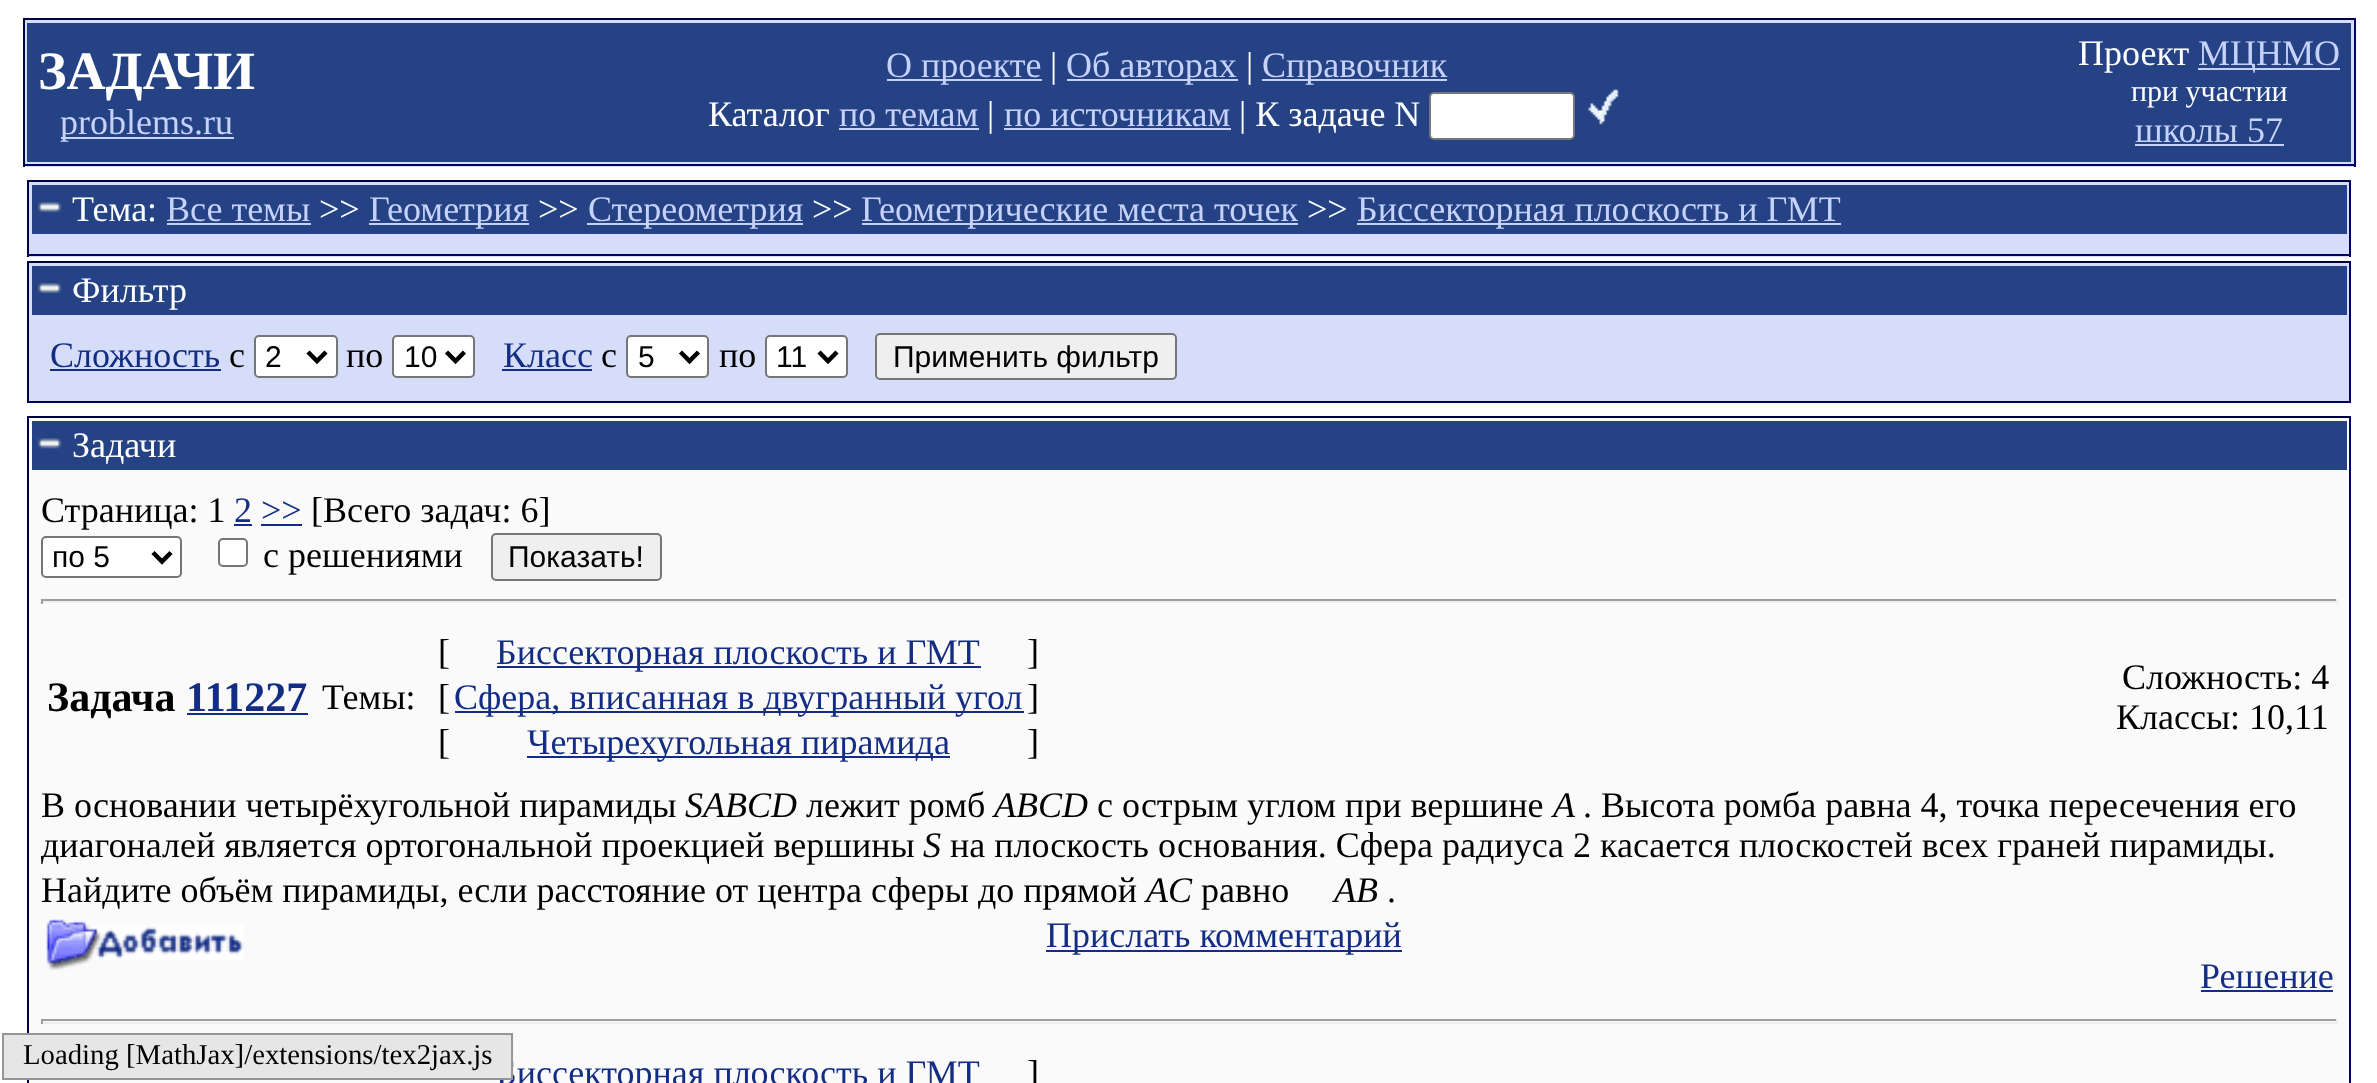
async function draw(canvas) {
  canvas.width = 2377;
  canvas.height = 1083;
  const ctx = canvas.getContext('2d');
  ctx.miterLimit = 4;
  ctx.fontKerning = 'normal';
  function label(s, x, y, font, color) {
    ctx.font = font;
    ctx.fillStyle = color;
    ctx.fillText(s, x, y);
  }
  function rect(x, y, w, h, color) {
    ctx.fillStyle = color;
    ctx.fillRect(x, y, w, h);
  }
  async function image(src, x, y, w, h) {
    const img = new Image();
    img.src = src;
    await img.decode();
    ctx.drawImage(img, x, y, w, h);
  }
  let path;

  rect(0, 0, 2377, 1083, '#fff');
  rect(25, 20, 2329, 147, '#d5ddf9');
  rect(23, 18, 2333, 2, '#004');
  rect(2354, 18, 2, 149, '#006');
  rect(23, 164, 2333, 2, '#006');
  rect(23, 18, 2, 149, '#004');
  rect(27, 23, 2324, 139, '#254285');
  label('ЗАДАЧИ', 38, 89, 'bold 54px Liberation Serif', '#fff');
  rect(61, 137, 173, 2, '#c7d2fa');
  label('problems.ru', 60, 134, '36px Liberation Serif', '#c7d2fa');
  rect(887, 79, 155, 2, '#c7d2fa');
  label('О проекте', 886, 77, '36px Liberation Serif', '#c7d2fa');
  label('|', 1050, 77, '36px Liberation Serif', '#fff');
  rect(1067, 79, 171, 2, '#c7d2fa');
  label('Об авторах', 1066, 77, '36px Liberation Serif', '#c7d2fa');
  label('|', 1246, 77, '36px Liberation Serif', '#fff');
  rect(1262, 79, 185, 2, '#c7d2fa');
  label('Справочник', 1262, 77, '36px Liberation Serif', '#c7d2fa');
  label('Каталог', 708, 126, '36px Liberation Serif', '#fff');
  label('по темам', 839, 126, '36px Liberation Serif', '#c7d2fa');
  rect(839, 128, 140, 2, '#c7d2fa');
  label('|', 987, 126, '36px Liberation Serif', '#fff');
  label('по источникам', 1004, 126, '36px Liberation Serif', '#c7d2fa');
  rect(1004, 128, 227, 2, '#c7d2fa');
  label('| К задаче N', 1239, 126, '36px Liberation Serif', '#fff');
  ctx.beginPath();
  ctx.roundRect(1430, 93, 144, 46, 4);
  ctx.fill();
  ctx.strokeStyle = '#767676';
  ctx.lineWidth = 2;
  ctx.stroke();
  await image('assets/img1.png', 1588, 89, 31, 36);
  label('Проект', 2078, 65, '36px Liberation Serif', '#fff');
  rect(2198, 68, 142, 2, '#c7d2fa');
  label('МЦНМО', 2198, 65, '36px Liberation Serif', '#c7d2fa');
  label('при участии', 2131, 101, '30px Liberation Serif', '#fff');
  label('школы 57', 2135, 142, '36px Liberation Serif', '#c7d2fa');
  rect(2135, 144, 149, 2, '#c7d2fa');
  rect(29, 182, 2320, 75, '#d5ddf9');
  rect(27, 180, 2324, 2, '#004');
  rect(2349, 180, 2, 77, '#006');
  rect(27, 254, 2324, 2, '#006');
  rect(27, 180, 2, 77, '#004');
  rect(32, 185, 2315, 49, '#254285');
  await image('assets/img2.png', 37, 202, 25, 11);
  label('Тема:', 72, 221, '36px Liberation Serif', '#fff');
  label('Все темы', 166, 221, '36px Liberation Serif', '#c7d2fa');
  rect(167, 223, 144, 2, '#c7d2fa');
  label('>>', 319, 221, '36px Liberation Serif', '#fff');
  rect(369, 223, 160, 2, '#c7d2fa');
  label('Геометрия', 369, 221, '36px Liberation Serif', '#c7d2fa');
  label('>>', 538, 221, '36px Liberation Serif', '#fff');
  rect(587, 223, 216, 2, '#c7d2fa');
  label('Стереометрия', 588, 221, '36px Liberation Serif', '#c7d2fa');
  label('>>', 812, 221, '36px Liberation Serif', '#fff');
  rect(862, 223, 436, 2, '#c7d2fa');
  label('Геометрические места точек', 861, 221, '36px Liberation Serif', '#c7d2fa');
  label('>>', 1307, 221, '36px Liberation Serif', '#fff');
  rect(1357, 223, 484, 2, '#c7d2fa');
  label('Биссекторная плоскость и ГМТ', 1357, 221, '36px Liberation Serif', '#c7d2fa');
  rect(29, 263, 2320, 138, '#d5ddf9');
  rect(27, 261, 2324, 2, '#004');
  rect(2349, 261, 2, 142, '#006');
  rect(27, 401, 2324, 2, '#006');
  rect(27, 261, 2, 142, '#004');
  rect(32, 266, 2315, 49, '#254285');
  await image('assets/img3.png', 37, 283, 25, 11);
  label('Фильтр', 72, 302, '36px Liberation Serif', '#fff');
  label('Сложность', 50, 367, '36px Liberation Serif', '#132d84');
  rect(50, 369, 171, 2, '#132d84');
  label('с', 229, 367, '36px Liberation Serif', '#000');
  ctx.fillStyle = '#fff';
  ctx.beginPath();
  ctx.roundRect(255, 336, 82, 41, 4);
  ctx.fill();
  ctx.stroke();
  path = new Path2D('M308 352L317 361L326 352');
  ctx.strokeStyle = '#000';
  ctx.lineWidth = 4.5;
  ctx.stroke(path);
  label('2', 265, 367, '30px Liberation Sans', '#000');
  label('по', 346, 367, '36px Liberation Serif', '#000');
  ctx.fillStyle = '#fff';
  ctx.beginPath();
  ctx.roundRect(393, 336, 81, 41, 4);
  ctx.fill();
  ctx.strokeStyle = '#767676';
  ctx.lineWidth = 2;
  ctx.stroke();
  path = new Path2D('M446.5 352L455.5 361L464.5 352');
  ctx.strokeStyle = '#000';
  ctx.lineWidth = 4.5;
  ctx.stroke(path);
  label('10', 404, 367, '30px Liberation Sans', '#000');
  label('Класс', 503, 367, '36px Liberation Serif', '#132d84');
  rect(502, 369, 90, 2, '#132d84');
  label('с', 601, 367, '36px Liberation Serif', '#000');
  ctx.fillStyle = '#fff';
  ctx.beginPath();
  ctx.roundRect(627, 336, 81, 41, 4);
  ctx.fill();
  ctx.strokeStyle = '#767676';
  ctx.lineWidth = 2;
  ctx.stroke();
  path = new Path2D('M680.5 352L689.5 361L698.5 352');
  ctx.strokeStyle = '#000';
  ctx.lineWidth = 4.5;
  ctx.stroke(path);
  label('5', 638, 367, '30px Liberation Sans', '#000');
  label('по', 719, 367, '36px Liberation Serif', '#000');
  ctx.fillStyle = '#fff';
  ctx.beginPath();
  ctx.roundRect(766, 336, 81, 41, 4);
  ctx.fill();
  ctx.strokeStyle = '#767676';
  ctx.lineWidth = 2;
  ctx.stroke();
  path = new Path2D('M819 352L828 361L837 352');
  ctx.strokeStyle = '#000';
  ctx.lineWidth = 4.5;
  ctx.stroke(path);
  label('11', 776, 367, '30px Liberation Sans', '#000');
  ctx.fillStyle = '#efefef';
  ctx.beginPath();
  ctx.roundRect(876, 334, 300, 45, 4);
  ctx.fill();
  ctx.strokeStyle = '#767676';
  ctx.lineWidth = 2;
  ctx.stroke();
  label('Применить фильтр', 893, 367, '30px Liberation Sans', '#000');
  rect(29, 418, 2320, 665, '#fafafa');
  rect(27, 416, 2324, 2, '#004');
  rect(2349, 416, 2, 667, '#006');
  rect(27, 416, 2, 667, '#004');
  rect(32, 421, 2315, 49, '#254285');
  await image('assets/img4.png', 37, 438, 25, 11);
  label('Задачи', 72, 457, '36px Liberation Serif', '#fff');
  label('Страница: 1', 41, 522, '36px Liberation Serif', '#000');
  label('2 >>', 234, 522, '36px Liberation Serif', '#132d84');
  rect(234, 524, 18, 2, '#132d84');
  label('[Всего задач: 6]', 311, 522, '36px Liberation Serif', '#000');
  rect(261, 524, 41, 2, '#132d84');
  ctx.fillStyle = '#fff';
  ctx.beginPath();
  ctx.roundRect(42, 537, 139, 40, 4);
  ctx.fill();
  ctx.stroke();
  path = new Path2D('M153 552.5L162 561.5L171 552.5');
  ctx.strokeStyle = '#000';
  ctx.lineWidth = 4.5;
  ctx.stroke(path);
  label('по 5', 52, 567, '30px Liberation Sans', '#000');
  ctx.fillStyle = '#fff';
  ctx.beginPath();
  ctx.roundRect(219, 539, 28, 27, 4);
  ctx.fill();
  ctx.strokeStyle = '#767676';
  ctx.lineWidth = 2;
  ctx.stroke();
  label('с решениями', 263, 567, '36px Liberation Serif', '#000');
  ctx.fillStyle = '#efefef';
  ctx.beginPath();
  ctx.roundRect(492, 534, 169, 46, 4);
  ctx.fill();
  ctx.stroke();
  label('Показать!', 508, 567, '30px Liberation Sans', '#000');
  rect(41, 599, 2297, 2, '#9f9f9f');
  rect(2336, 599, 2, 5, '#eee');
  rect(41, 601, 2297, 2, '#eee');
  rect(41, 599, 2, 5, '#9f9f9f');
  label('Задача', 47, 711, 'bold 42px Liberation Serif', '#000');
  label('111227', 186, 711, 'bold 42px Liberation Serif', '#132d84');
  rect(187, 713, 121, 2, '#132d84');
  label('[', 438, 664, '36px Liberation Serif', '#000');
  rect(497, 666, 484, 2, '#132d84');
  label('Биссекторная плоскость и ГМТ', 496, 664, '36px Liberation Serif', '#132d84');
  label(']', 1027, 664, '36px Liberation Serif', '#000');
  label('Темы:', 322, 709, '36px Liberation Serif', '#000');
  label('[', 438, 709, '36px Liberation Serif', '#000');
  rect(455, 711, 569, 2, '#132d84');
  label('Сфера, вписанная в двугранный угол', 454, 709, '36px Liberation Serif', '#132d84');
  label(']', 1027, 709, '36px Liberation Serif', '#000');
  label('[', 438, 754, '36px Liberation Serif', '#000');
  rect(527, 756, 423, 2, '#132d84');
  label('Четырехугольная пирамида', 527, 754, '36px Liberation Serif', '#132d84');
  label(']', 1027, 754, '36px Liberation Serif', '#000');
  label('Сложность: 4', 2122, 689, '36px Liberation Serif', '#000');
  label('Классы: 10,11', 2116, 729, '36px Liberation Serif', '#000');
  label('В основании четырёхугольной пирамиды', 41, 817, '36px Liberation Serif', '#000');
  label('SABCD', 685, 817, 'italic 36px Liberation Serif', '#000');
  label('лежит ромб', 806, 817, '36px Liberation Serif', '#000');
  label('ABCD', 994, 817, 'italic 36px Liberation Serif', '#000');
  label('с острым углом при вершине', 1097, 817, '36px Liberation Serif', '#000');
  label('A', 1553, 817, 'italic 36px Liberation Serif', '#000');
  label('. Высота ромба равна 4, точка пересечения его', 1583, 817, '36px Liberation Serif', '#000');
  label('диагоналей является ортогональной проекцией вершины', 41, 857, '36px Liberation Serif', '#000');
  label('S', 923, 857, 'italic 36px Liberation Serif', '#000');
  label('на плоскость основания. Сфера радиуса 2 касается плоскостей всех граней пирамиды.', 950, 857, '36px Liberation Serif', '#000');
  label('Найдите объём пирамиды, если расстояние от центра сферы до прямой', 41, 902, '36px Liberation Serif', '#000');
  label('AC', 1146, 902, 'italic 36px Liberation Serif', '#000');
  label('равно', 1201, 902, '36px Liberation Serif', '#000');
  label('AB', 1334, 902, 'italic 36px Liberation Serif', '#000');
  label('.', 1387, 902, '36px Liberation Serif', '#000');
  await image('assets/img5.png', 45, 919, 199, 51);
  rect(1046, 950, 356, 2, '#132d84');
  label('Прислать комментарий', 1046, 947, '36px Liberation Serif', '#132d84');
  label('Решение', 2200, 988, '36px Liberation Serif', '#132d84');
  rect(2201, 990, 132, 2, '#132d84');
  rect(41, 1019, 2297, 2, '#9f9f9f');
  rect(2336, 1019, 2, 5, '#eee');
  rect(41, 1022, 2297, 2, '#eee');
  rect(41, 1019, 2, 5, '#9f9f9f');
  label('Биссекторная плоскость и ГМТ', 496, 1085, '36px Liberation Serif', '#132d84');
  label(']', 1027, 1085, '36px Liberation Serif', '#000');
  ctx.fillStyle = '#e6e6e6';
  ctx.beginPath();
  ctx.rect(3, 1034, 509, 45);
  ctx.fill();
  ctx.strokeStyle = '#959595';
  ctx.stroke();
  label('Loading [MathJax]/extensions/tex2jax.js', 23, 1064, '28.75px Liberation Serif', '#000');
}

draw(document.querySelector('canvas'));
